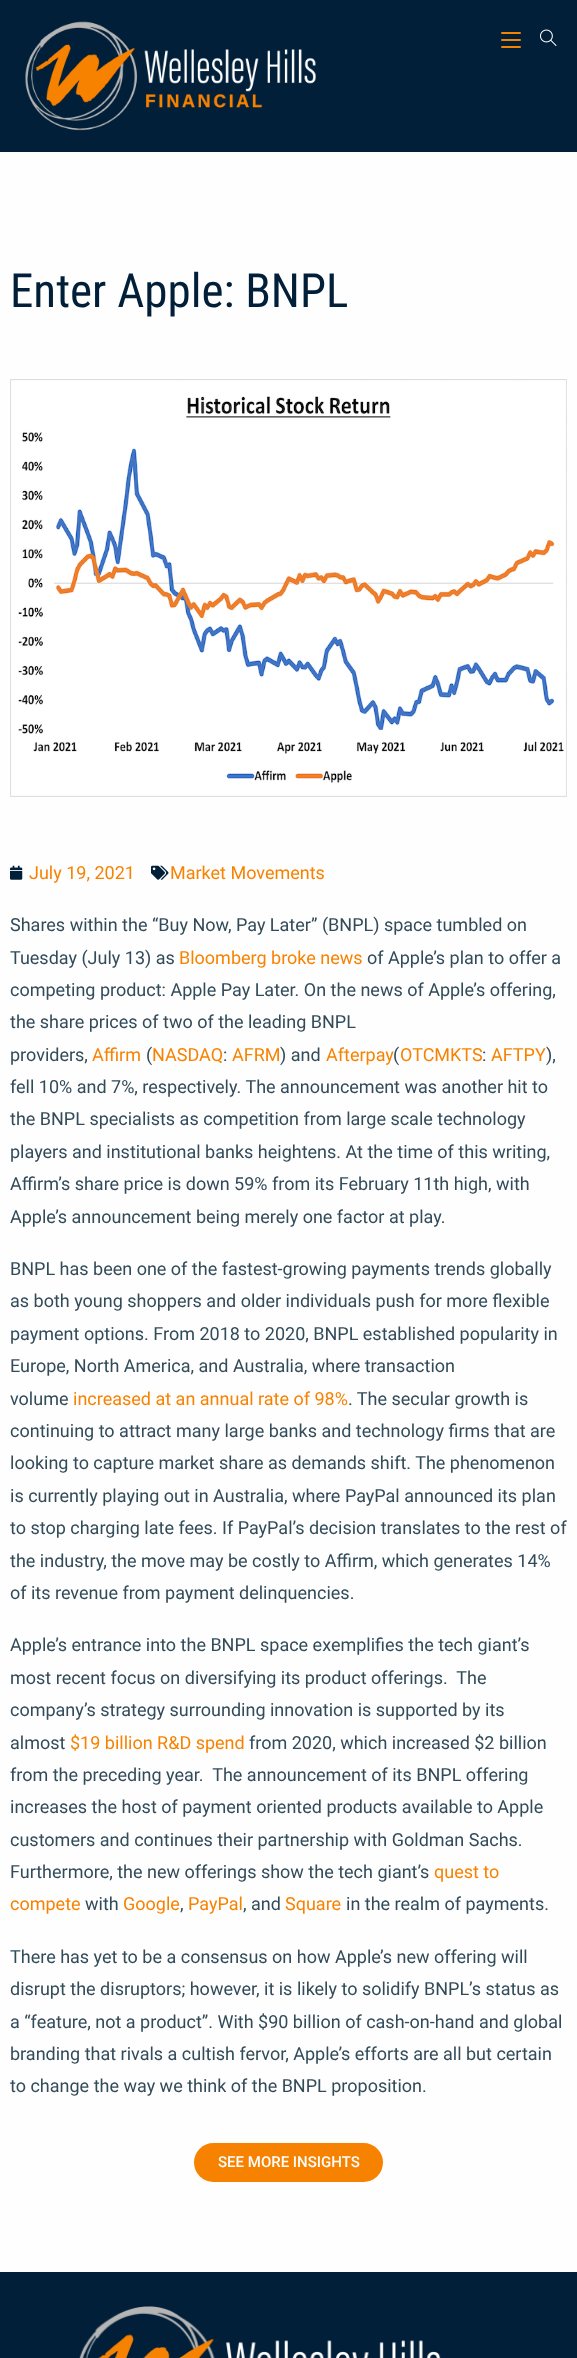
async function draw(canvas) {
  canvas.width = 577;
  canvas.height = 2358;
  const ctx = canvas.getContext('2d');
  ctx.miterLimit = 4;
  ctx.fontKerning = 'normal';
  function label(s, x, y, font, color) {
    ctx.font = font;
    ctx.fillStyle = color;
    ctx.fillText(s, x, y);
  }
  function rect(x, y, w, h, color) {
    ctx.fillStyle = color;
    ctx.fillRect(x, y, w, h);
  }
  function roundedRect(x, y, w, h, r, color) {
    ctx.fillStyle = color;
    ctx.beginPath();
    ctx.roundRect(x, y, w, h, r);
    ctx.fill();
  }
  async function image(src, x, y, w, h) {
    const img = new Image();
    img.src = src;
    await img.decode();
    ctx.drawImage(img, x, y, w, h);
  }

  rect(0, 0, 577, 2358, '#fefefe');
  rect(0, 0, 577, 152, '#011f38');
  await image('assets/img1.png', 25, 21, 291, 110);
  roundedRect(501, 32, 20, 2, 1, '#f78200');
  roundedRect(501, 39, 20, 2, 1, '#f78200');
  roundedRect(501, 46, 20, 2, 1, '#f78200');
  await image('assets/img2.png', 540, 29, 17, 17);
  label('Enter Apple: BNPL', 10, 307, '47px Roboto Condensed', '#011f38');
  await image('assets/img3.png', 10, 379, 557, 418);
  await image('assets/img4.png', 10, 865, 13, 15);
  label('July 19, 2021', 29, 879, '18px Roboto', '#f78200');
  await image('assets/img5.png', 151, 865, 18, 15);
  label('Market Movements', 170, 879, '18px Roboto', '#f78200');
  label('Shares within the “Buy Now, Pay Later” (BNPL) space tumbled on', 10, 931, '18px Roboto', '#324b59');
  label('Tuesday (July 13) as', 10, 964, '18px Roboto', '#324b59');
  label('Bloomberg broke news', 179, 964, '18px Roboto', '#f78200');
  label('of Apple’s plan to offer a', 367, 964, '18px Roboto', '#324b59');
  label('competing product: Apple Pay Later. On the news of Apple’s offering,', 10, 996, '18px Roboto', '#324b59');
  label('the share prices of two of the leading BNPL', 10, 1028, '18px Roboto', '#324b59');
  label('providers,', 10, 1061, '18px Roboto', '#324b59');
  label('Affirm', 92, 1061, '18px Roboto', '#f78200');
  label('(', 146, 1061, '18px Roboto', '#324b59');
  label('NASDAQ', 152, 1061, '18px Roboto', '#f78200');
  label(':', 223, 1061, '18px Roboto', '#324b59');
  label('AFRM', 232, 1061, '18px Roboto', '#f78200');
  label(') and', 280, 1061, '18px Roboto', '#324b59');
  label('Afterpay', 326, 1061, '18px Roboto', '#f78200');
  label('(', 393, 1061, '18px Roboto', '#324b59');
  label('OTCMKTS', 400, 1061, '18px Roboto', '#f78200');
  label(':', 482, 1061, '18px Roboto', '#324b59');
  label('AFTPY', 491, 1061, '18px Roboto', '#f78200');
  label('),', 546, 1061, '18px Roboto', '#324b59');
  label('fell 10% and 7%, respectively. The announcement was another hit to', 10, 1093, '18px Roboto', '#324b59');
  label('the BNPL specialists as competition from large scale technology', 10, 1125, '18px Roboto', '#324b59');
  label('players and institutional banks heightens. At the time of this writing,', 10, 1158, '18px Roboto', '#324b59');
  label('Affirm’s share price is down 59% from its February 11th high, with', 10, 1190, '18px Roboto', '#324b59');
  label('Apple’s announcement being merely one factor at play.', 10, 1223, '18px Roboto', '#324b59');
  label('BNPL has been one of the fastest-growing payments trends globally', 10, 1275, '18px Roboto', '#324b59');
  label('as both young shoppers and older individuals push for more flexible', 10, 1307, '18px Roboto', '#324b59');
  label('payment options. From 2018 to 2020, BNPL established popularity in', 10, 1340, '18px Roboto', '#324b59');
  label('Europe, North America, and Australia, where transaction', 10, 1372, '18px Roboto', '#324b59');
  label('volume', 10, 1405, '18px Roboto', '#324b59');
  label('increased at an annual rate of 98%', 73, 1405, '18px Roboto', '#f78200');
  label('. The secular growth is', 348, 1405, '18px Roboto', '#324b59');
  label('continuing to attract many large banks and technology firms that are', 10, 1437, '18px Roboto', '#324b59');
  label('looking to capture market share as demands shift. The phenomenon', 10, 1469, '18px Roboto', '#324b59');
  label('is currently playing out in Australia, where PayPal announced its plan', 10, 1502, '18px Roboto', '#324b59');
  label('to stop charging late fees. If PayPal’s decision translates to the rest of', 10, 1534, '18px Roboto', '#324b59');
  label('the industry, the move may be costly to Affirm, which generates 14%', 10, 1567, '18px Roboto', '#324b59');
  label('of its revenue from payment delinquencies.', 10, 1599, '18px Roboto', '#324b59');
  label('Apple’s entrance into the BNPL space exemplifies the tech giant’s', 10, 1651, '18px Roboto', '#324b59');
  label('most recent focus on diversifying its product offerings.  The', 10, 1684, '18px Roboto', '#324b59');
  label('company’s strategy surrounding innovation is supported by its', 10, 1716, '18px Roboto', '#324b59');
  label('almost', 10, 1749, '18px Roboto', '#324b59');
  label('$19 billion R&D spend', 70, 1749, '18px Roboto', '#f78200');
  label('from 2020, which increased $2 billion', 249, 1749, '18px Roboto', '#324b59');
  label('from the preceding year.  The announcement of its BNPL offering', 10, 1781, '18px Roboto', '#324b59');
  label('increases the host of payment oriented products available to Apple', 10, 1813, '18px Roboto', '#324b59');
  label('customers and continues their partnership with Goldman Sachs.', 10, 1846, '18px Roboto', '#324b59');
  label('Furthermore, the new offerings show the tech giant’s', 10, 1878, '18px Roboto', '#324b59');
  label('quest to', 434, 1878, '18px Roboto', '#f78200');
  label('compete', 10, 1910, '18px Roboto', '#f78200');
  label('with', 85, 1910, '18px Roboto', '#324b59');
  label('Google', 123, 1910, '18px Roboto', '#f78200');
  label(',', 180, 1910, '18px Roboto', '#324b59');
  label('PayPal', 188, 1910, '18px Roboto', '#f78200');
  label(', and', 243, 1910, '18px Roboto', '#324b59');
  label('Square', 285, 1910, '18px Roboto', '#f78200');
  label('in the realm of payments.', 346, 1910, '18px Roboto', '#324b59');
  label('There has yet to be a consensus on how Apple’s new offering will', 10, 1963, '18px Roboto', '#324b59');
  label('disrupt the disruptors; however, it is likely to solidify BNPL’s status as', 10, 1995, '18px Roboto', '#324b59');
  label('a “feature, not a product”. With $90 billion of cash-on-hand and global', 10, 2028, '18px Roboto', '#324b59');
  label('branding that rivals a cultish fervor, Apple’s efforts are all but certain', 10, 2060, '18px Roboto', '#324b59');
  label('to change the way we think of the BNPL proposition.', 10, 2092, '18px Roboto', '#324b59');
  roundedRect(194, 2143, 189, 39, 19.5, '#f78200');
  label('SEE MORE INSIGHTS', 218, 2167, '500 15px Roboto', '#fff');
  rect(0, 2272, 577, 86, '#011f38');
  await image('assets/img6.png', 79, 2306, 362, 52);
}

draw(document.querySelector('canvas'));
